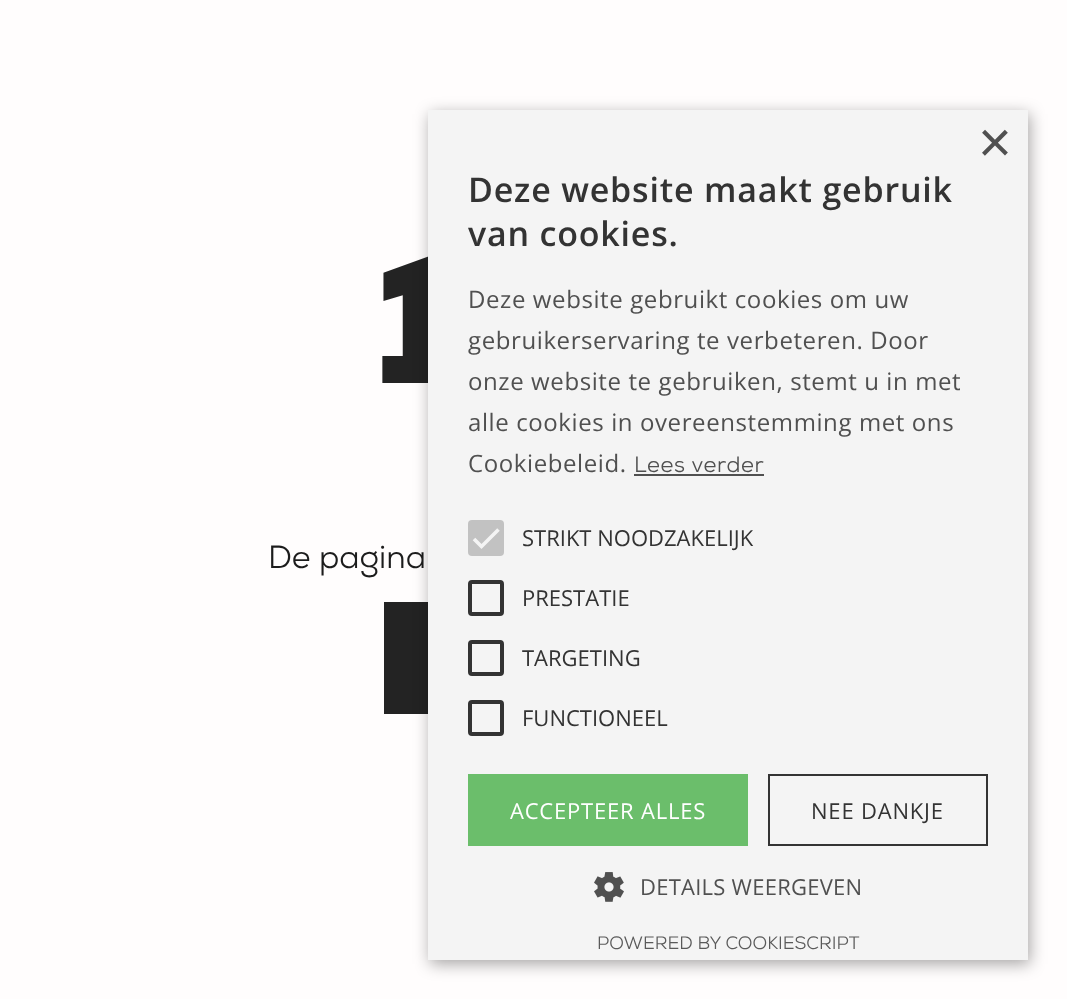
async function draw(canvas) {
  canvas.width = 1067;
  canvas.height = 999;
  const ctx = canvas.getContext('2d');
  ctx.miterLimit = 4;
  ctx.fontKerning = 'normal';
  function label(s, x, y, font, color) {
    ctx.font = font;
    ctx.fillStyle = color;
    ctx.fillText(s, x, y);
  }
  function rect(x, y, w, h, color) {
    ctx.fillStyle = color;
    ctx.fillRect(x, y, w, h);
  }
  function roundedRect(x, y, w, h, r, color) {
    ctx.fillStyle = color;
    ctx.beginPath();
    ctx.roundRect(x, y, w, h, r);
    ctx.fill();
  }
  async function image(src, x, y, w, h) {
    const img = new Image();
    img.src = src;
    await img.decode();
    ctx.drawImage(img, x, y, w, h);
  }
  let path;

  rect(0, 0, 1067, 999, '#fffdfd');
  label('1', 376, 383, '900 182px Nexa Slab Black', '#232323');
  label('De pagina', 268, 568, '32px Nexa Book', '#1c1c1c');
  rect(384, 602, 44, 112, '#232323');
  ctx.fillStyle = '#00000059';
  ctx.filter = 'blur(8px)';
  ctx.beginPath();
  ctx.rect(430, 114, 600, 850);
  ctx.fill();
  ctx.filter = 'none';
  rect(428, 110, 600, 850, '#f4f4f4');
  label('×', 978, 162, '58px Liberation Sans', '#505050');
  ctx.letterSpacing = '0.8px';
  label('Deze website maakt gebruik', 468, 202, '600 34px Open Sans', '#333');
  label('van cookies.', 468, 246, '600 34px Open Sans', '#333');
  ctx.letterSpacing = '0.6px';
  label('Deze website gebruikt cookies om uw', 468, 308, '24px Open Sans', '#505050');
  label('gebruikerservaring te verbeteren. Door', 468, 349, '24px Open Sans', '#505050');
  label('onze website te gebruiken, stemt u in met', 468, 390, '24px Open Sans', '#505050');
  label('alle cookies in overeenstemming met ons', 468, 431, '24px Open Sans', '#505050');
  label('Cookiebeleid.', 468, 472, '24px Open Sans', '#505050');
  label('Lees verder', 634, 472, '22px Nexa Book', '#505050');
  rect(634, 474, 130, 2, '#505050');
  roundedRect(468, 520, 36, 36, 4, '#c2c2c2');
  path = new Path2D('M474 539L481.5 546.5L498.5 529.5');
  ctx.strokeStyle = '#f4f4f4';
  ctx.lineWidth = 3.6;
  ctx.stroke(path);
  ctx.letterSpacing = '0px';
  label('STRIKT NOODZAKELIJK', 522, 546, '22px Open Sans', '#333');
  ctx.beginPath();
  ctx.roundRect(470, 582, 32, 32, 2);
  ctx.strokeStyle = '#333';
  ctx.lineWidth = 4;
  ctx.stroke();
  label('PRESTATIE', 522, 606, '22px Open Sans', '#333');
  ctx.beginPath();
  ctx.roundRect(470, 642, 32, 32, 2);
  ctx.stroke();
  label('TARGETING', 522, 666, '22px Open Sans', '#333');
  ctx.beginPath();
  ctx.roundRect(470, 702, 32, 32, 2);
  ctx.stroke();
  label('FUNCTIONEEL', 522, 726, '22px Open Sans', '#333');
  rect(468, 774, 280, 72, '#6bbe6b');
  ctx.letterSpacing = '0.8px';
  label('ACCEPTEER ALLES', 510, 819, '22px Open Sans', '#fff');
  ctx.lineWidth = 2;
  ctx.strokeRect(769, 775, 218, 70);
  label('NEE DANKJE', 811, 819, '22px Open Sans', '#333');
  await image('assets/img1.png', 594, 872, 30, 30);
  ctx.letterSpacing = '0.25px';
  label('DETAILS WEERGEVEN', 640, 895, '22px Open Sans', '#505050');
  ctx.letterSpacing = '0px';
  label('POWERED BY COOKIESCRIPT', 597, 949, '18px Nexa Book', '#5a5a5a');
}

draw(document.querySelector('canvas'));
